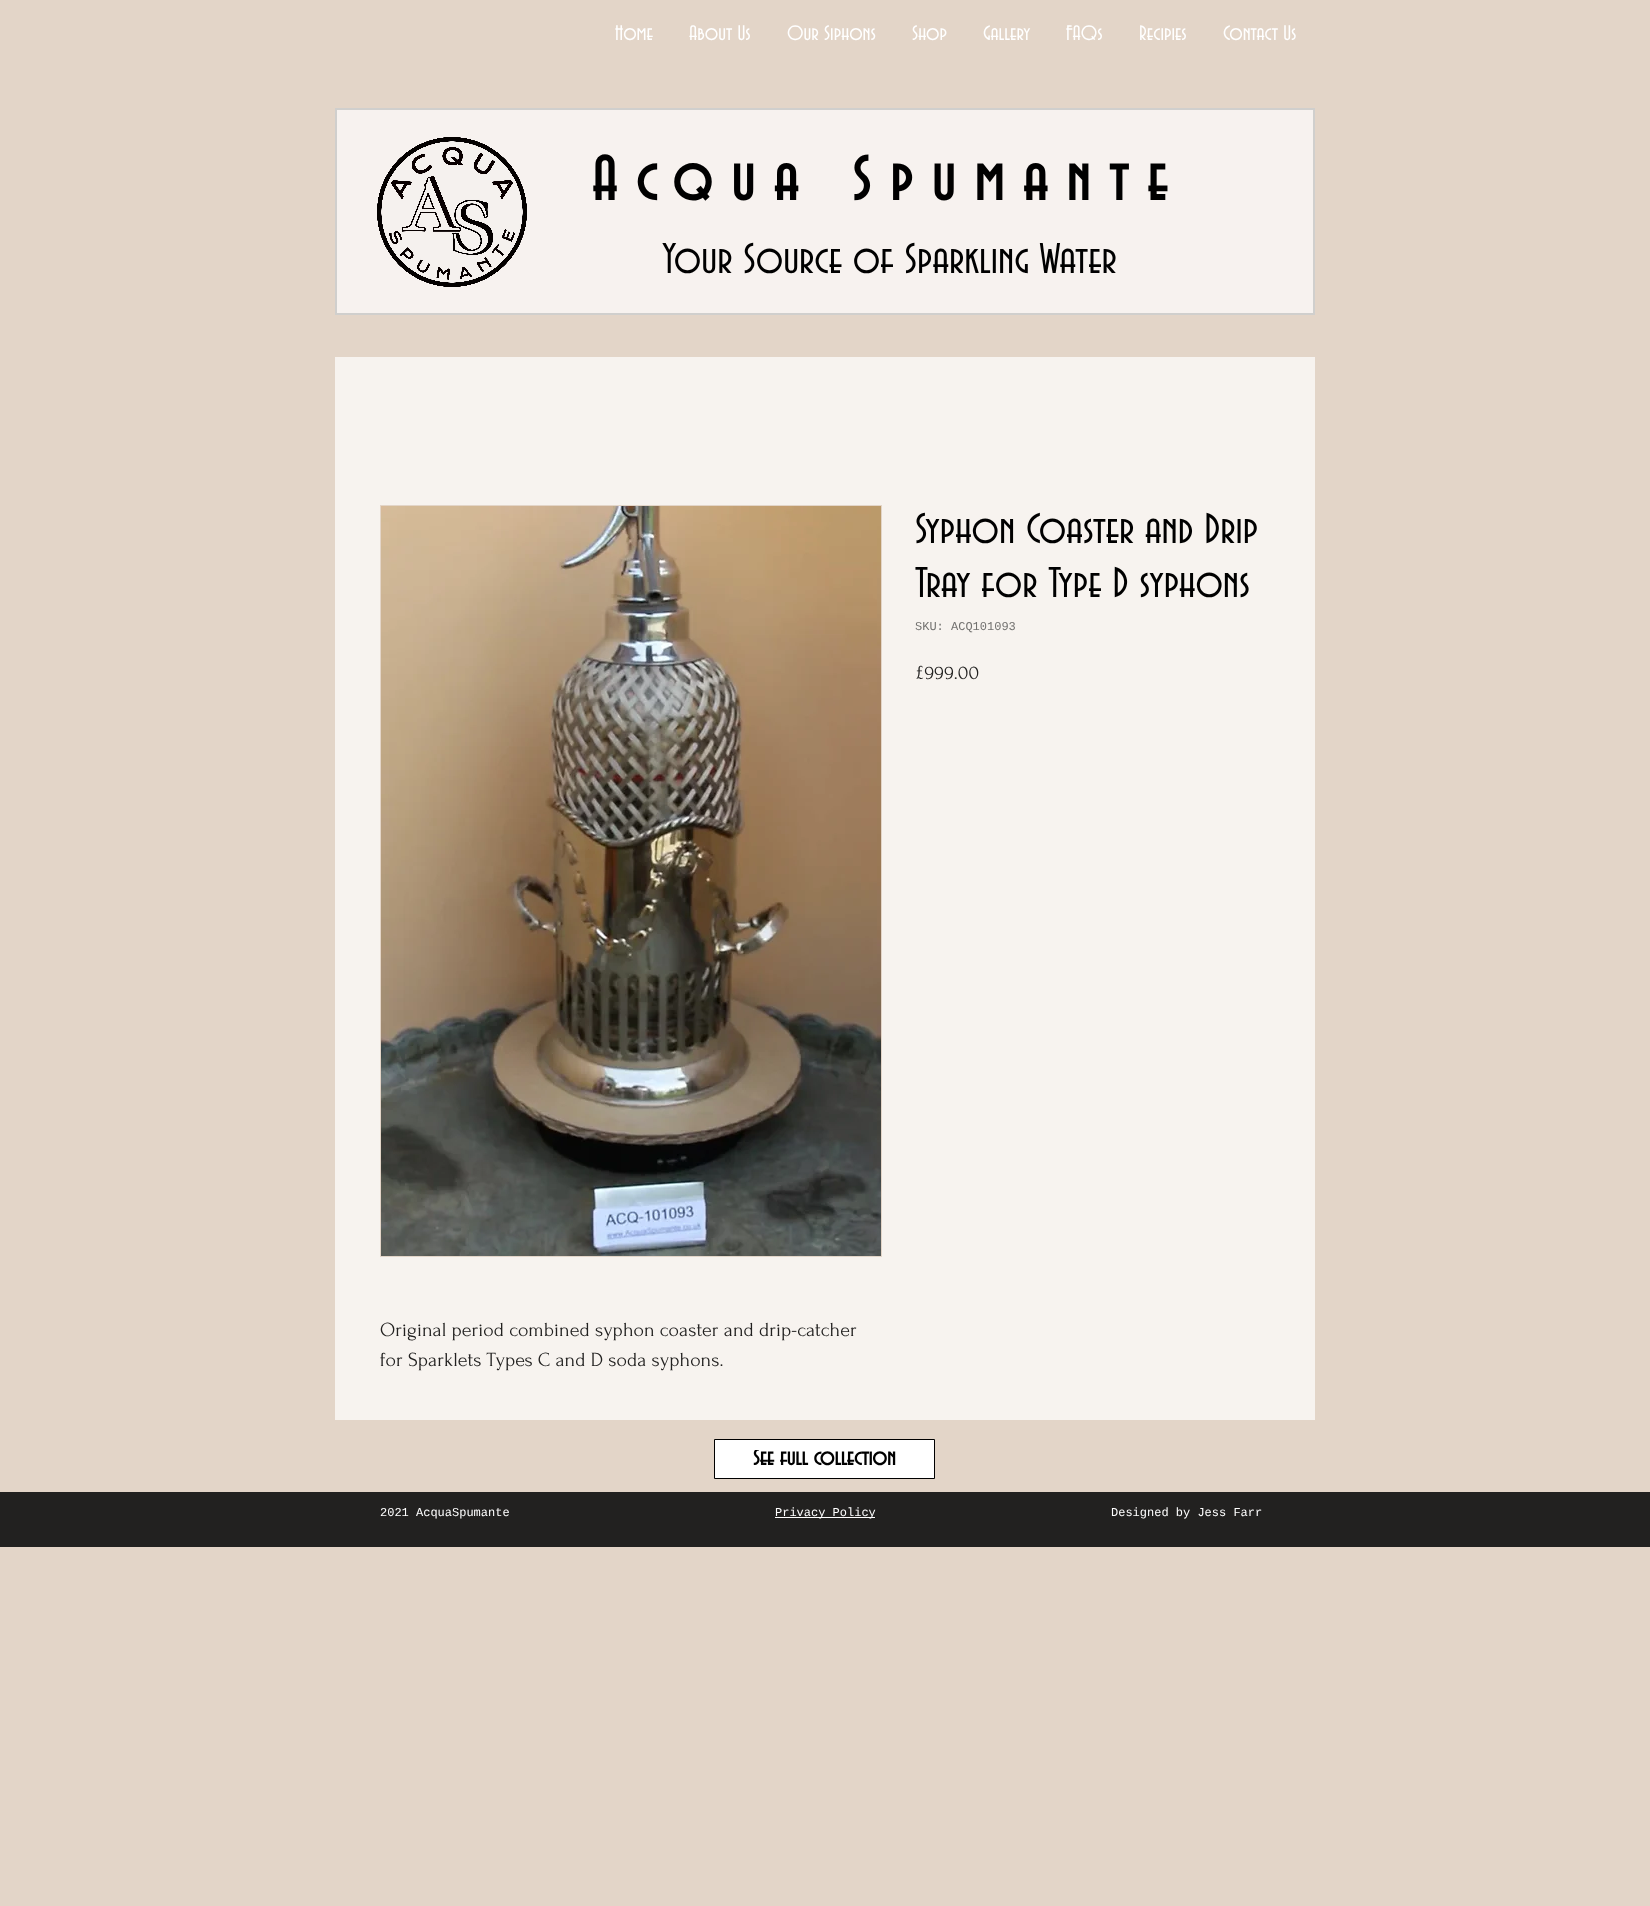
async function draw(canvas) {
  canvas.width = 1650;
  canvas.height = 1906;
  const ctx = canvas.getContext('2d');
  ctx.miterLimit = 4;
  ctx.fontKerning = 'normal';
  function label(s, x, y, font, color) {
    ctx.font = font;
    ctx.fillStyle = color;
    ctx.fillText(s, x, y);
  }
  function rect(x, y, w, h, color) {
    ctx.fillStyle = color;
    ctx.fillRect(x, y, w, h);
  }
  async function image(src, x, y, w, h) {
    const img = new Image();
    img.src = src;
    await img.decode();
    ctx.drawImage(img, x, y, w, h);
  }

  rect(0, 0, 1650, 1906, '#e3d5c8');
  label('Home', 615, 40, '22px "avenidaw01"', '#fff');
  label('About Us', 689, 40, '22px "avenidaw01"', '#fff');
  label('Our Siphons', 787, 40, '22px "avenidaw01"', '#fff');
  label('Shop', 912, 40, '22px "avenidaw01"', '#fff');
  label('Gallery', 983, 40, '22px "avenidaw01"', '#fff');
  label('FAQs', 1066, 40, '22px "avenidaw01"', '#fff');
  label('Recipies', 1139, 40, '22px "avenidaw01"', '#fff');
  label('Contact Us', 1223, 40, '22px "avenidaw01"', '#fff');
  ctx.fillStyle = '#f7f2ef';
  ctx.beginPath();
  ctx.rect(336, 109, 978, 205);
  ctx.fill();
  ctx.strokeStyle = '#d0cfcd';
  ctx.lineWidth = 2;
  ctx.stroke();
  await image('assets/img1.png', 377, 137, 150, 150);
  ctx.letterSpacing = '19.5px';
  label('Acqua Spumante', 592, 200, 'bold 65px "avenidaw01"', '#000');
  ctx.letterSpacing = '0px';
  label('Your Source of Sparkling Water', 662, 273, '45px "avenidaw01"', '#000');
  rect(335, 357, 980, 1063, '#f7f3ef');
  label('Syphon Coaster and Drip', 915, 543, '45px "avenidaw01"', '#000');
  label('Tray for Type D syphons', 915, 597, '45px "avenidaw01"', '#000');
  label('SKU: ACQ101093', 915, 630, '12px Liberation Mono', '#72716f');
  label('£999.00', 915, 679, '20px Forum', '#222120');
  ctx.strokeStyle = '#e3d5c8';
  ctx.lineWidth = 1;
  ctx.strokeRect(380.5, 505.5, 501, 751);
  await image('assets/img2.png', 381, 506, 500, 750);
  label('Original period combined syphon coaster and drip-catcher', 380, 1336, '20px Forum', '#222120');
  label('for Sparklets Types C and D soda syphons.', 380, 1366, '20px Forum', '#222120');
  ctx.fillStyle = '#fff';
  ctx.beginPath();
  ctx.rect(714.5, 1439.5, 220, 39);
  ctx.fill();
  ctx.strokeStyle = '#000';
  ctx.stroke();
  ctx.save();
  ctx.beginPath();
  ctx.rect(753, 1450, 143, 18);
  ctx.clip();
  label('See full collection', 753, 1465, 'bold 24px "avenidaw01"', '#000');
  ctx.restore();
  rect(0, 1492, 1650, 55, '#222120');
  label('2021 AcquaSpumante', 380, 1516, '12px Liberation Mono', '#fff');
  rect(775, 1517, 100, 1, '#fff');
  label('Privacy Policy', 775, 1516, '12px Liberation Mono', '#fff');
  label('Designed by Jess Farr', 1111, 1516, '12px Liberation Mono', '#fff');
}

draw(document.querySelector('canvas'));
